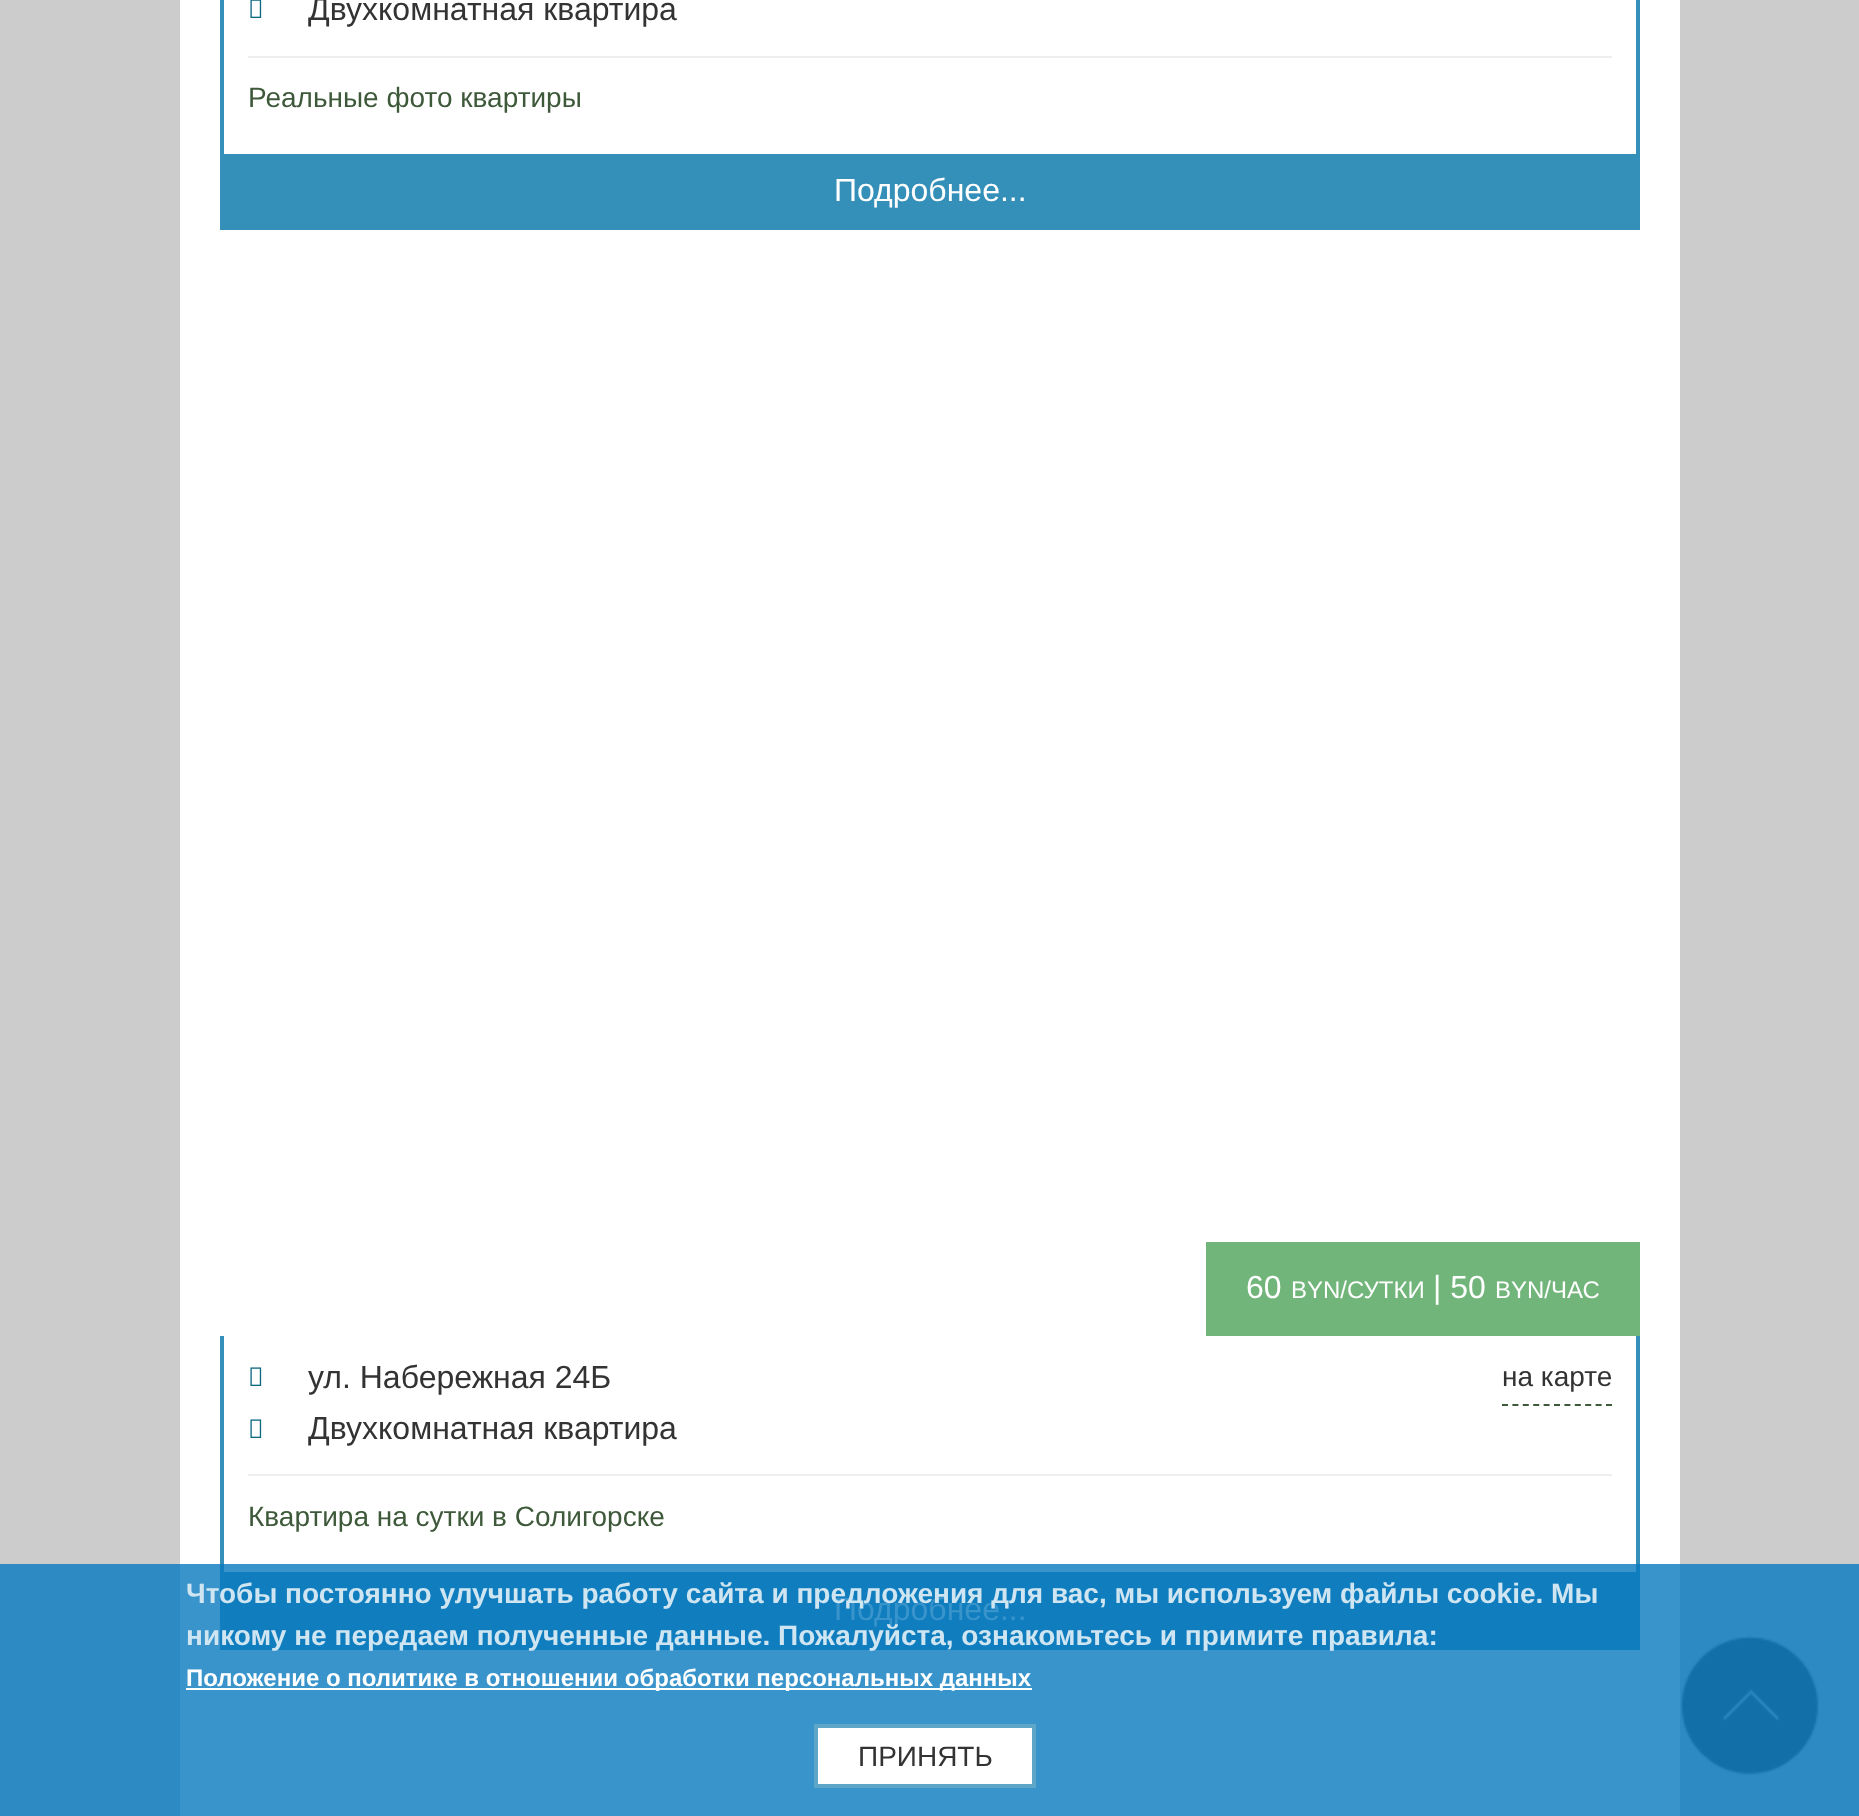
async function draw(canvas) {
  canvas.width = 1859;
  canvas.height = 1816;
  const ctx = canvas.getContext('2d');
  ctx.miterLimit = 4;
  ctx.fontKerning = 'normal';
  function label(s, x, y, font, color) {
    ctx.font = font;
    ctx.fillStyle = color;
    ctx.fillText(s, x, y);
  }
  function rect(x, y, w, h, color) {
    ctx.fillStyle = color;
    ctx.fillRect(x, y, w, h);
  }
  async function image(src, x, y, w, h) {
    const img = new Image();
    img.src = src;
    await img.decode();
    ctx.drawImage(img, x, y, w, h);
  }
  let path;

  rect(0, 0, 1859, 1816, '#ccc');
  rect(0, 1564, 1859, 252, '#2e8ac2');
  rect(180, 0, 1500, 1564, '#fff');
  rect(180, 1564, 1500, 252, '#3994cc');
  rect(1636, 0, 4, 154, '#3590b9');
  rect(220, 0, 4, 154, '#3590b9');
  await image('assets/img1.png', 250, 0, 12, 18);
  label('Двухкомнатная квартира', 308, 20, '32px Liberation Sans', '#333');
  rect(248, 56, 1364, 2, '#eee');
  label('Реальные фото квартиры', 248, 107, '28px Liberation Sans', '#3e593a');
  rect(220, 154, 1420, 76, '#3590b9');
  label('Подробнее...', 834, 201, '32px Liberation Sans', '#fff');
  rect(1206, 1242, 434, 94, '#71b57a');
  label('60', 1246, 1298, '32px Liberation Sans', '#fff');
  label('BYN/СУТКИ', 1291, 1298, '24px Liberation Sans', '#fff');
  label('| 50', 1433, 1298, '32px Liberation Sans', '#fff');
  label('BYN/ЧАС', 1495, 1298, '24px Liberation Sans', '#fff');
  rect(1636, 1336, 4, 236, '#3590b9');
  rect(1636, 1564, 4, 8, '#107ebe');
  rect(220, 1336, 4, 236, '#3590b9');
  rect(220, 1564, 4, 8, '#107ebe');
  await image('assets/img2.png', 250, 1367, 12, 19);
  label('ул. Набережная 24Б', 308, 1388, '32px Liberation Sans', '#333');
  path = new Path2D('M1502 1405H1612');
  ctx.strokeStyle = '#3e593a';
  ctx.lineWidth = 2;
  ctx.setLineDash([6, 4.4]);
  ctx.stroke(path);
  label('на карте', 1502, 1386, '28px Liberation Sans', '#333');
  await image('assets/img2.png', 250, 1419, 12, 19);
  label('Двухкомнатная квартира', 308, 1439, '32px Liberation Sans', '#333');
  rect(248, 1474, 1364, 2, '#eee');
  label('Квартира на сутки в Солигорске', 248, 1526, '28px Liberation Sans', '#3e593a');
  rect(220, 1572, 1420, 78, '#107ebe');
  label('Подробнее...', 834, 1620, '32px Liberation Sans', '#3994cc');
  label('Чтобы постоянно улучшать работу сайта и предложения для вас, мы используем файлы cookie. Мы', 186, 1603, 'bold 28px Liberation Sans', '#cfe5f2');
  label('никому не передаем полученные данные. Пожалуйста, ознакомьтесь и примите правила:', 186, 1645, 'bold 28px Liberation Sans', '#cfe5f2');
  rect(186, 1688, 846, 2, '#fff');
  label('Положение о политике в отношении обработки персональных данных', 186, 1686, 'bold 24px Liberation Sans', '#fff');
  ctx.beginPath();
  ctx.rect(816, 1726, 218, 60);
  ctx.fill();
  ctx.strokeStyle = '#5da6c7';
  ctx.lineWidth = 4;
  ctx.setLineDash([]);
  ctx.stroke();
  label('ПРИНЯТЬ', 858, 1766, '28px Liberation Sans', '#333');
  await image('assets/img3.png', 1680, 1636, 139, 139);
}

draw(document.querySelector('canvas'));
